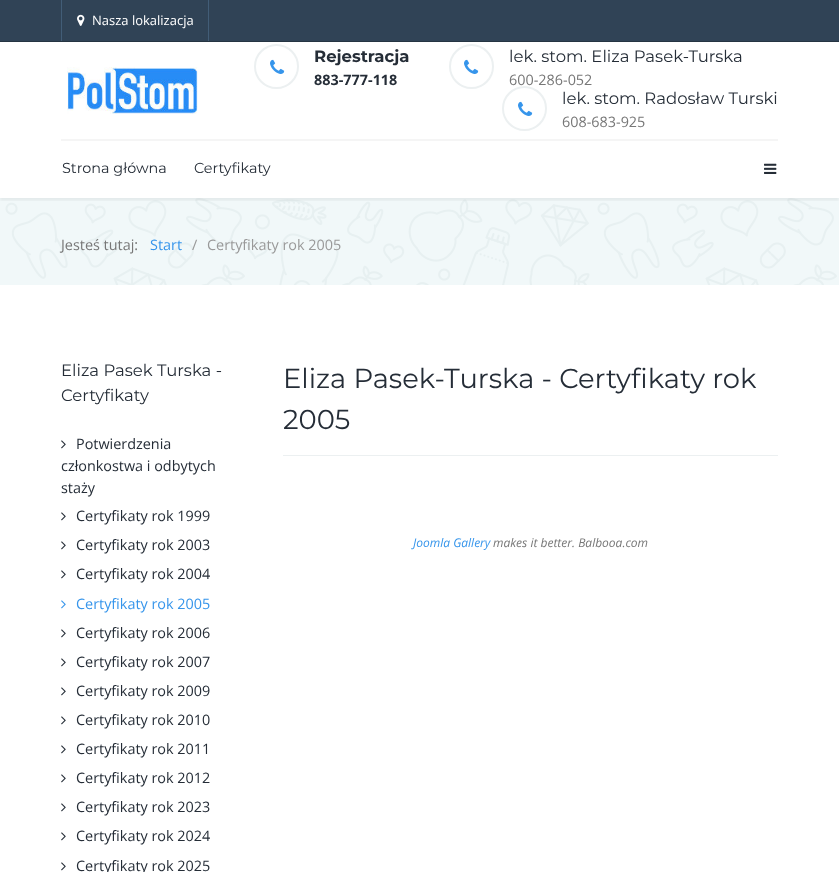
async function draw(canvas) {
  canvas.width = 839;
  canvas.height = 872;
  const ctx = canvas.getContext('2d');
  ctx.miterLimit = 4;
  ctx.fontKerning = 'normal';
  function label(s, x, y, font, color) {
    ctx.font = font;
    ctx.fillStyle = color;
    ctx.fillText(s, x, y);
  }
  function rect(x, y, w, h, color) {
    ctx.fillStyle = color;
    ctx.fillRect(x, y, w, h);
  }
  async function image(src, x, y, w, h) {
    const img = new Image();
    img.src = src;
    await img.decode();
    ctx.drawImage(img, x, y, w, h);
  }

  rect(0, 0, 839, 872, '#fff');
  rect(0, 0, 839, 41, '#304356');
  rect(0, 41, 839, 1, '#253442');
  rect(208, 0, 1, 41, '#425d77');
  rect(61, 0, 1, 41, '#425d77');
  await image('assets/img1.png', 77, 14, 8, 12);
  label('Nasza lokalizacja', 92, 25, '13px Open Sans', '#fff');
  await image('assets/img2.png', 67, 67, 131, 47);
  ctx.beginPath();
  ctx.arc(276.5, 66.5, 21.5, 0, 2 * Math.PI);
  ctx.strokeStyle = '#ecf0f1';
  ctx.lineWidth = 2;
  ctx.stroke();
  await image('assets/img3.png', 270, 59, 15, 15);
  label('Rejestracja', 314, 62, 'bold 16.5px Montserrat', '#252d37');
  label('883-777-118', 314, 85, 'bold 14.4px Open Sans', '#252d37');
  ctx.beginPath();
  ctx.arc(471.5, 66.5, 21.5, 0, 2 * Math.PI);
  ctx.stroke();
  await image('assets/img3.png', 464, 59, 15, 15);
  label('lek. stom. Eliza Pasek-Turska', 509, 62, '16.5px Montserrat', '#252d37');
  label('600-286-052', 509, 85, '14.4px Open Sans', '#777');
  ctx.beginPath();
  ctx.arc(524.5, 108.5, 21.5, 0, 2 * Math.PI);
  ctx.stroke();
  await image('assets/img3.png', 518, 101, 15, 15);
  label('lek. stom. Radosław Turski', 562, 104, '16.5px Montserrat', '#252d37');
  label('608-683-925', 562, 127, '14.4px Open Sans', '#777');
  await image('assets/img5.png', 0, 198, 839, 87);
  ctx.save();
  ctx.beginPath();
  ctx.rect(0, 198, 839, 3);
  ctx.clip();
  ctx.fillStyle = '#0000000d';
  ctx.filter = 'blur(1.5px)';
  ctx.beginPath();
  ctx.rect(0, 142, 839, 59);
  ctx.fill();
  ctx.filter = 'none';
  ctx.restore();
  rect(61, 139, 717, 2, '#f5f5f5');
  label('Strona główna', 62, 173, '14.4px Montserrat', '#252d37');
  label('Certyfikaty', 194, 173, '14.4px Montserrat', '#252d37');
  await image('assets/img4.png', 764, 163, 13, 11);
  label('Jesteś tutaj:', 61, 250, '14.4px Open Sans', '#777');
  label('Start', 150, 250, '14.4px Open Sans', '#3695eb');
  label('/', 192, 250, '14.4px Open Sans', '#999');
  label('Certyfikaty rok 2005', 207, 250, '14.4px Open Sans', '#999');
  label('Eliza Pasek Turska -', 61, 376, '16.5px Montserrat', '#252d37');
  label('Certyfikaty', 61, 401, '16.5px Montserrat', '#252d37');
  await image('assets/img6.png', 61, 440, 5, 9);
  label('Potwierdzenia', 76, 449, '14.4px Open Sans', '#252d37');
  label('członkostwa i odbytych', 61, 471, '14.4px Open Sans', '#252d37');
  label('staży', 61, 493, '14.4px Open Sans', '#252d37');
  await image('assets/img6.png', 61, 512, 5, 9);
  label('Certyfikaty rok 1999', 76, 521, '14.4px Open Sans', '#252d37');
  await image('assets/img6.png', 61, 541, 5, 9);
  label('Certyfikaty rok 2003', 76, 550, '14.4px Open Sans', '#252d37');
  await image('assets/img6.png', 61, 570, 5, 9);
  label('Certyfikaty rok 2004', 76, 579, '14.4px Open Sans', '#252d37');
  await image('assets/img7.png', 61, 600, 5, 9);
  label('Certyfikaty rok 2005', 76, 609, '14.4px Open Sans', '#3695eb');
  await image('assets/img6.png', 61, 629, 5, 9);
  label('Certyfikaty rok 2006', 76, 638, '14.4px Open Sans', '#252d37');
  await image('assets/img6.png', 61, 658, 5, 9);
  label('Certyfikaty rok 2007', 76, 667, '14.4px Open Sans', '#252d37');
  await image('assets/img6.png', 61, 687, 5, 9);
  label('Certyfikaty rok 2009', 76, 696, '14.4px Open Sans', '#252d37');
  await image('assets/img6.png', 61, 716, 5, 9);
  label('Certyfikaty rok 2010', 76, 725, '14.4px Open Sans', '#252d37');
  await image('assets/img6.png', 61, 745, 5, 9);
  label('Certyfikaty rok 2011', 76, 754, '14.4px Open Sans', '#252d37');
  await image('assets/img6.png', 61, 774, 5, 9);
  label('Certyfikaty rok 2012', 76, 783, '14.4px Open Sans', '#252d37');
  await image('assets/img6.png', 61, 803, 5, 9);
  label('Certyfikaty rok 2023', 76, 812, '14.4px Open Sans', '#252d37');
  await image('assets/img6.png', 61, 832, 5, 9);
  label('Certyfikaty rok 2024', 76, 841, '14.4px Open Sans', '#252d37');
  await image('assets/img6.png', 61, 862, 5, 9);
  label('Certyfikaty rok 2025', 76, 871, '14.4px Open Sans', '#252d37');
  rect(283, 455, 495, 1, '#ecf0f1');
  label('Eliza Pasek-Turska - Certyfikaty rok', 283, 388, '27.4px Montserrat', '#252d37');
  label('2005', 283, 429, '27.4px Montserrat', '#252d37');
  label('Joomla Gallery', 413, 547, 'italic 12px Open Sans', '#3695eb');
  label('makes it better. Balbooa.com', 493, 547, 'italic 12px Open Sans', '#777');
}

draw(document.querySelector('canvas'));
